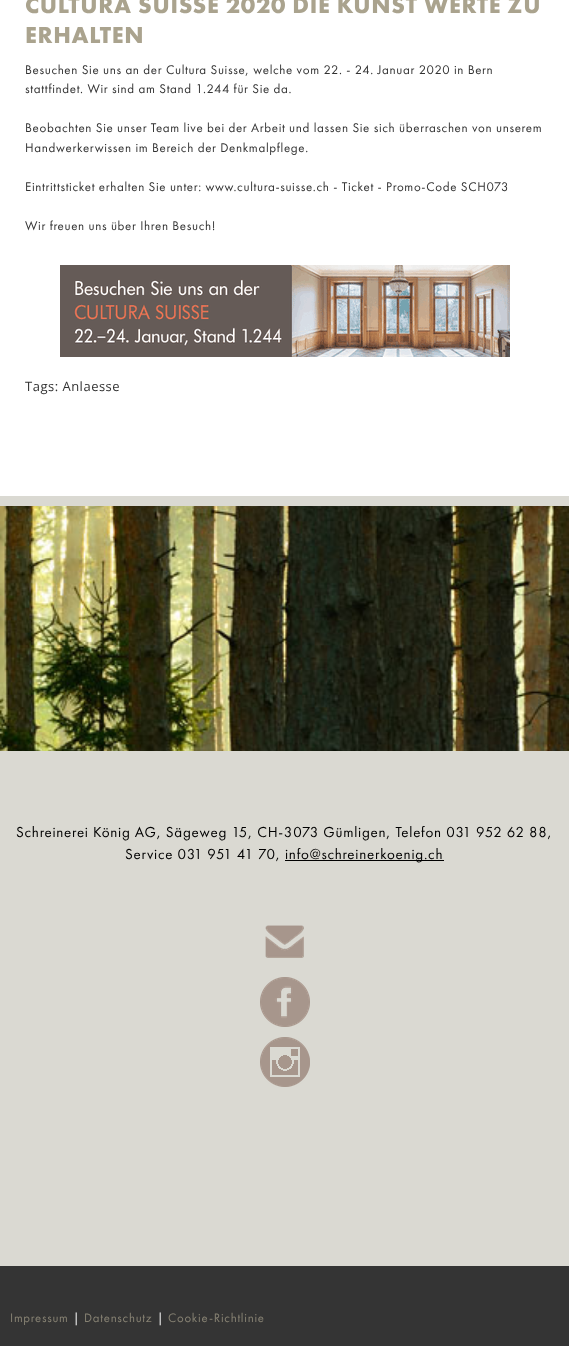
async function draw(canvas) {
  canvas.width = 569;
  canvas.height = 1346;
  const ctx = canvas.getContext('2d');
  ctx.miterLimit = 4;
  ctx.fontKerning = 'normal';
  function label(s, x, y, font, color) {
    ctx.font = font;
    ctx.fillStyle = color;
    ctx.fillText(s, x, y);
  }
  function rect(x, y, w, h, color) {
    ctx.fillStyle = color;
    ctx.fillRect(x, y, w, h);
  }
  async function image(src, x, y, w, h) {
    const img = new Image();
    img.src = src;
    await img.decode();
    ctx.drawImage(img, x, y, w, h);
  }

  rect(0, 0, 569, 1346, '#fff');
  ctx.letterSpacing = '0.7px';
  label('CULTURA SUISSE 2020 DIE KUNST WERTE ZU', 25, 13, 'bold 24px Futura PT', '#aaa38e');
  label('ERHALTEN', 25, 43, 'bold 24px Futura PT', '#aaa38e');
  ctx.letterSpacing = '0.65px';
  label('Besuchen Sie uns an der Cultura Suisse, welche vom 22. - 24. Januar 2020 in Bern', 25, 74, '13px Futura PT', '#333');
  label('stattfindet. Wir sind am Stand 1.244 für Sie da.', 25, 93, '13px Futura PT', '#333');
  label('Beobachten Sie unser Team live bei der Arbeit und lassen Sie sich überraschen von unserem', 25, 132, '13px Futura PT', '#333');
  label('Handwerkerwissen im Bereich der Denkmalpflege.', 25, 152, '13px Futura PT', '#333');
  label('Eintrittsticket erhalten Sie unter: www.cultura-suisse.ch - Ticket - Promo-Code SCH073', 25, 191, '13px Futura PT', '#333');
  label('Wir freuen uns über Ihren Besuch!', 25, 230, '13px Futura PT', '#333');
  await image('assets/img1.png', 60, 265, 450, 92);
  ctx.letterSpacing = '0.5px';
  label('Tags: Anlaesse', 25, 391, '13px Open Sans', '#333');
  rect(0, 496, 569, 770, '#dad9d2');
  await image('assets/img2.png', 0, 506, 569, 245);
  ctx.letterSpacing = '0.75px';
  label('Schreinerei König AG, Sägeweg 15, CH-3073 Gümligen, Telefon 031 952 62 88,', 16, 837, '15px Futura PT', '#000');
  label('Service 031 951 41 70,', 125, 859, '15px Futura PT', '#000');
  rect(285, 860, 159, 1, '#000');
  label('info@schreinerkoenig.ch', 285, 859, '15px Futura PT', '#000');
  await image('assets/img3.png', 265, 925, 39, 33);
  await image('assets/img4.png', 260, 977, 50, 50);
  await image('assets/img5.png', 260, 1037, 50, 50);
  rect(0, 1266, 569, 80, '#343434');
  label('Impressum', 10, 1322, '12.75px Futura PT', '#878273');
  label('|', 73, 1322, '12.75px Futura PT', '#fff');
  label('Datenschutz', 84, 1322, '12.75px Futura PT', '#878273');
  label('|', 157, 1322, '12.75px Futura PT', '#fff');
  label('Cookie-Richtlinie', 168, 1322, '12.75px Futura PT', '#878273');
}

draw(document.querySelector('canvas'));
